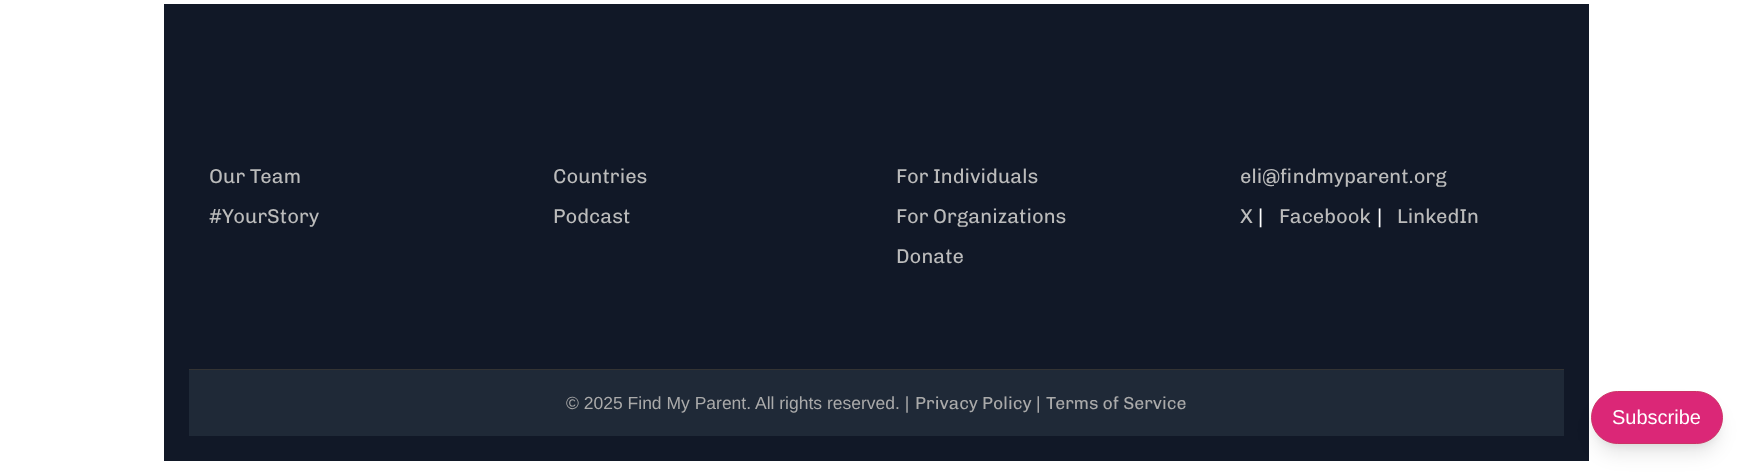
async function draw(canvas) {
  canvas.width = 1752;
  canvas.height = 473;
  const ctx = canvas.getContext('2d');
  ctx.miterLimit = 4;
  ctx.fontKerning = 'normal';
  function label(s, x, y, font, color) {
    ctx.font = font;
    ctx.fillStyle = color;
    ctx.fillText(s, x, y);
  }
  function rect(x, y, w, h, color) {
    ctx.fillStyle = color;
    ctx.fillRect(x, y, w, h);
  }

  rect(0, 0, 1752, 473, '#fff');
  rect(164, 4, 1425, 457, '#111827');
  label('Our Team', 209, 183, '20px Chivo', '#bbb');
  label('#YourStory', 209, 223, '20px Chivo', '#bbb');
  label('Countries', 553, 183, '20px Chivo', '#bbb');
  label('Podcast', 553, 223, '20px Chivo', '#bbb');
  label('For Individuals', 896, 183, '20px Chivo', '#bbb');
  label('For Organizations', 896, 223, '20px Chivo', '#bbb');
  label('Donate', 896, 263, '20px Chivo', '#bbb');
  label('eli@findmyparent.org', 1240, 183, '20px Chivo', '#bbb');
  label('X', 1240, 223, '20px Chivo', '#bbb');
  label('|', 1258, 223, '20px Liberation Sans', '#fff');
  label('Facebook', 1279, 223, '20px Chivo', '#bbb');
  label('|', 1377, 223, '20px Liberation Sans', '#fff');
  label('LinkedIn', 1397, 223, '20px Chivo', '#bbb');
  rect(189, 370, 1375, 66, '#1f2937');
  rect(189, 369, 1375, 1, '#333');
  label('© 2025 Find My Parent. All rights reserved. |', 566, 409, '17.5px Liberation Sans', '#aaa');
  label('Privacy Policy', 915, 409, '17.5px Chivo', '#aaa');
  label('|', 1036, 409, '17.5px Liberation Sans', '#aaa');
  label('Terms of Service', 1046, 409, '17.5px Chivo', '#aaa');
  ctx.fillStyle = '#0000001a';
  ctx.filter = 'blur(4px)';
  ctx.beginPath();
  ctx.roundRect(1596, 401, 122, 43, 21.5);
  ctx.fill();
  ctx.filter = 'none';
  ctx.filter = 'blur(9.5px)';
  ctx.beginPath();
  ctx.roundRect(1595, 408, 124, 45, 22.5);
  ctx.fill();
  ctx.filter = 'none';
  ctx.fillStyle = '#db2777';
  ctx.beginPath();
  ctx.roundRect(1591.5, 391.5, 131, 52, 26);
  ctx.fill();
  ctx.strokeStyle = '#c36';
  ctx.stroke();
  label('Subscribe', 1612, 424, '20px Liberation Sans', '#fff');
}

draw(document.querySelector('canvas'));
